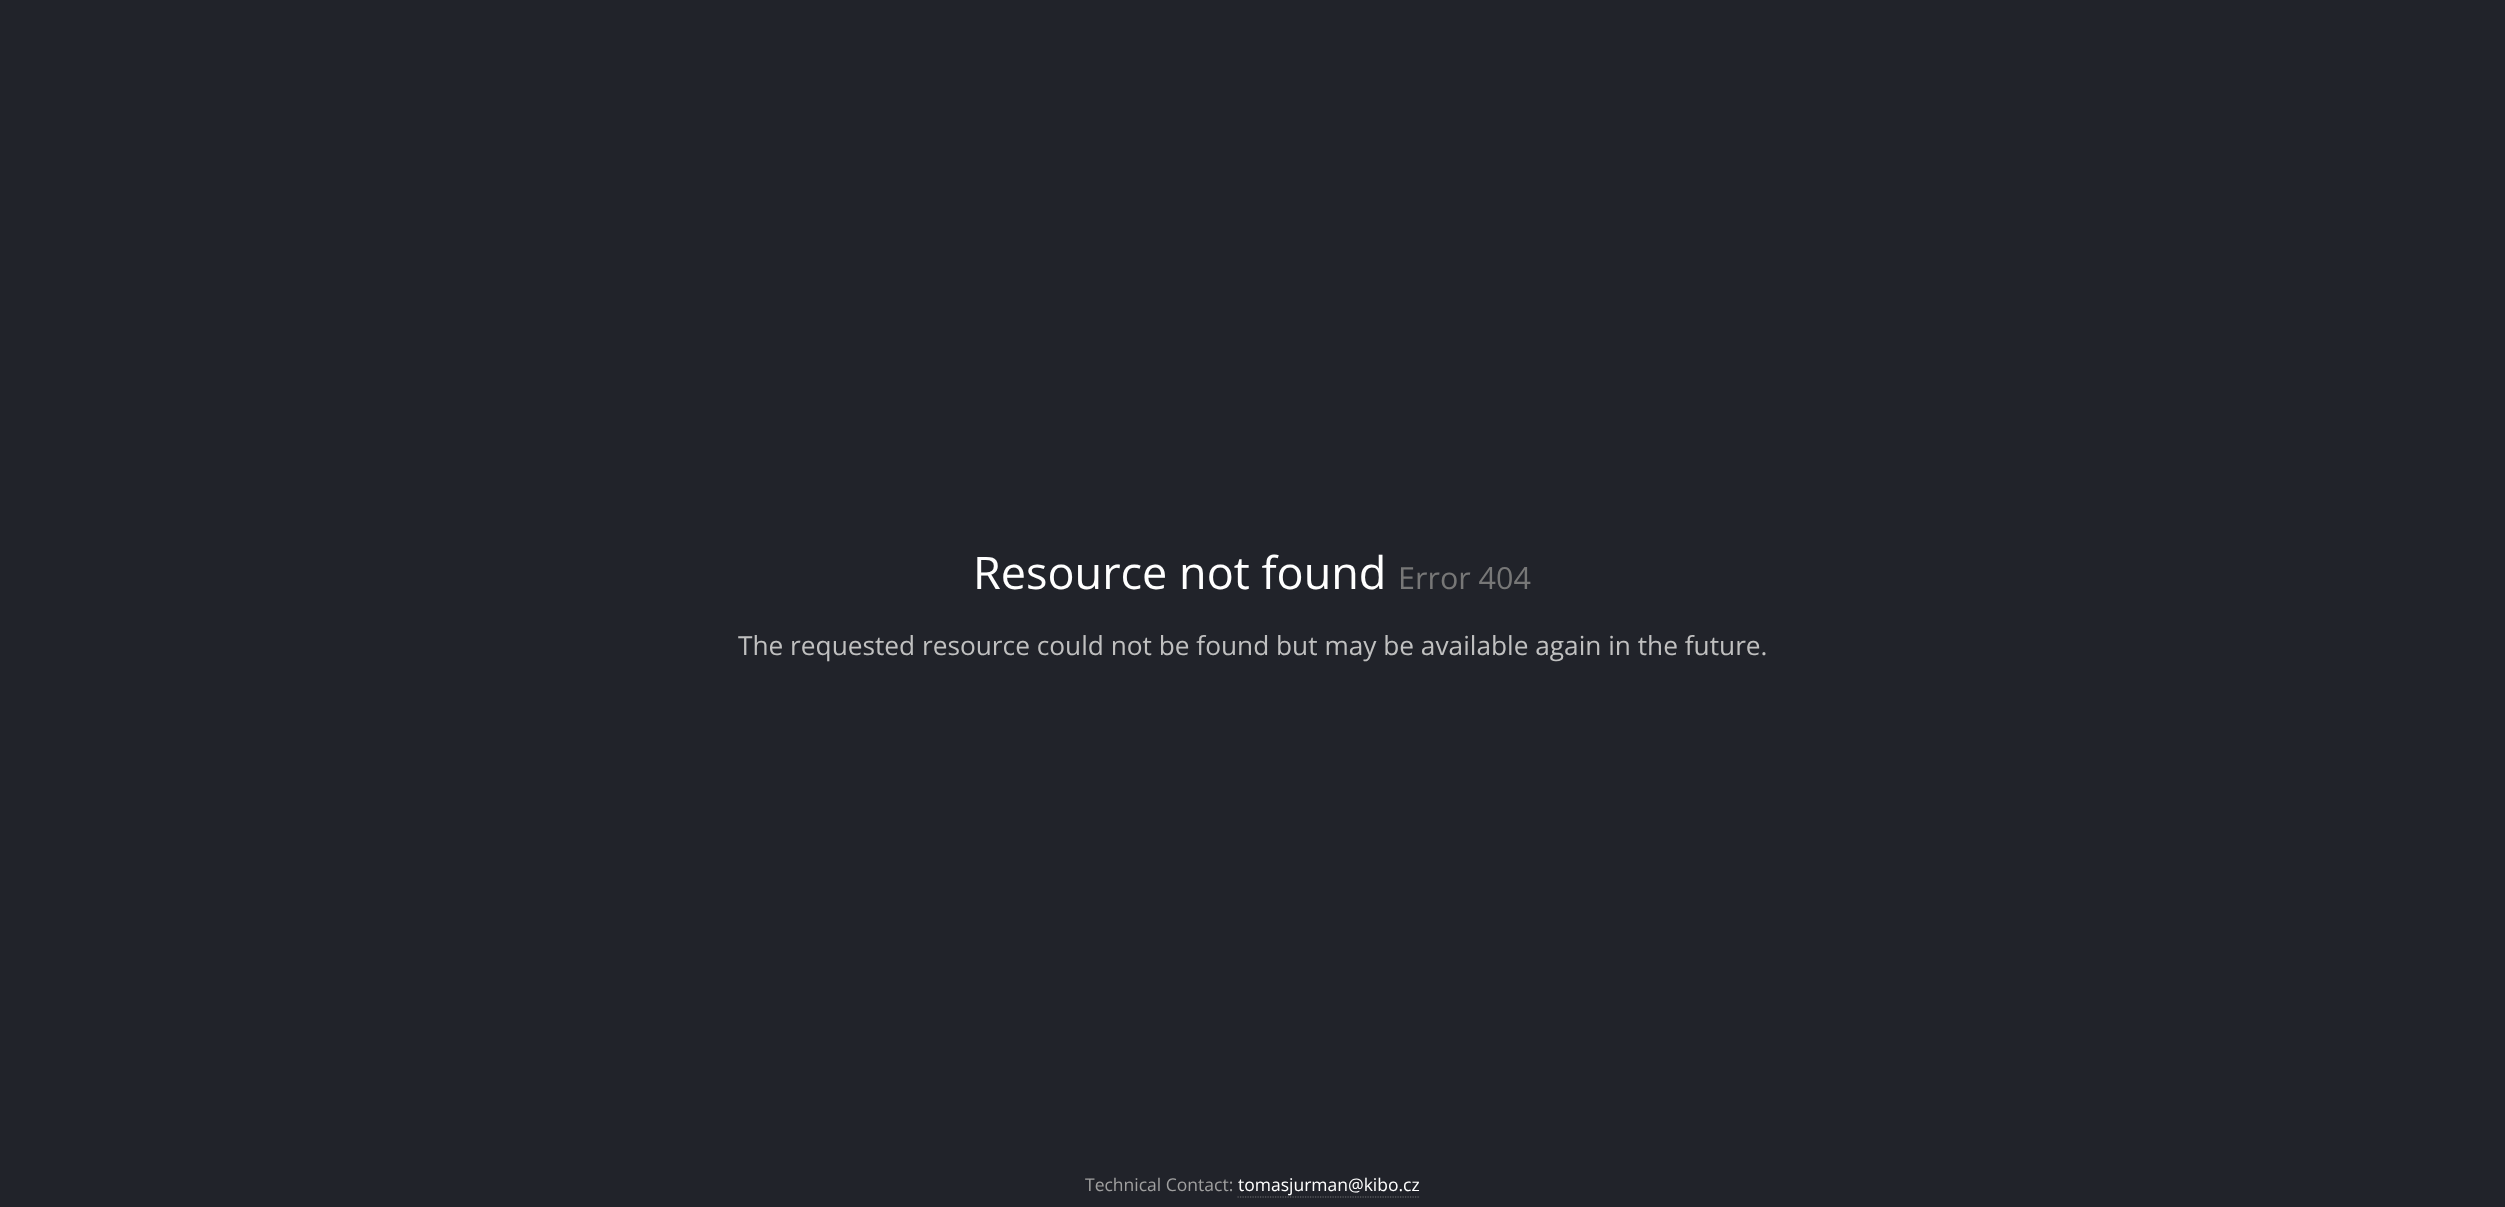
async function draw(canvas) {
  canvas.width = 2505;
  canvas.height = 1207;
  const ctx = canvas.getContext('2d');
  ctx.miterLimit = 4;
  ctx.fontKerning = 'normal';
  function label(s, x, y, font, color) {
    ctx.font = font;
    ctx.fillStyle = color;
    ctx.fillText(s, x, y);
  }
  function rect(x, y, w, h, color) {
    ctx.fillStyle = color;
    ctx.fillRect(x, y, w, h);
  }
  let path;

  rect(0, 0, 2505, 1207, '#21232a');
  label('Resource not found', 973, 589, '45px Open Sans', '#fff');
  label('Error 404', 1398, 589, '30.5px Open Sans', '#777');
  label('The requested resource could not be found but may be available again in the future.', 738, 655, '26.25px Open Sans', '#c0c0c0');
  label('Technical Contact:', 1085, 1191, '17.5px Open Sans', '#a0a0a0');
  label('tomasjurman@kibo.cz', 1238, 1191, '17.5px Open Sans', '#fff');
  path = new Path2D('M1237.5 1197H1420');
  ctx.strokeStyle = '#707070';
  ctx.lineWidth = 1.2;
  ctx.setLineDash([1.25, 1.25]);
  ctx.stroke(path);
}

draw(document.querySelector('canvas'));
